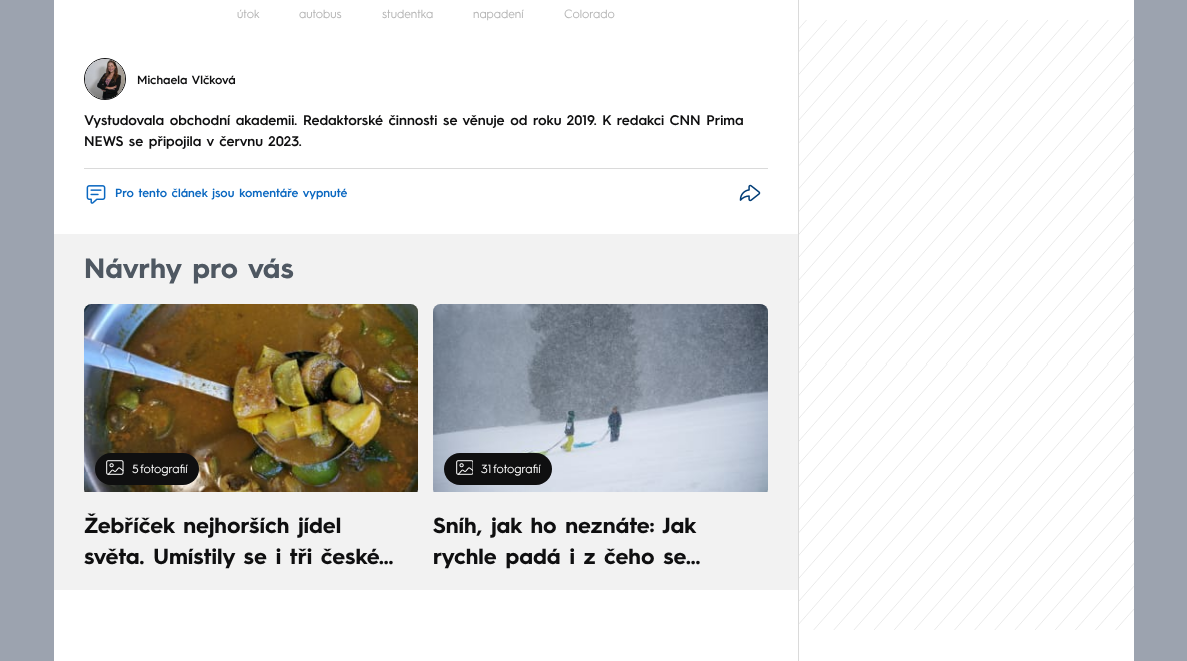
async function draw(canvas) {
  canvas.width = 1187;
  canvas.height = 661;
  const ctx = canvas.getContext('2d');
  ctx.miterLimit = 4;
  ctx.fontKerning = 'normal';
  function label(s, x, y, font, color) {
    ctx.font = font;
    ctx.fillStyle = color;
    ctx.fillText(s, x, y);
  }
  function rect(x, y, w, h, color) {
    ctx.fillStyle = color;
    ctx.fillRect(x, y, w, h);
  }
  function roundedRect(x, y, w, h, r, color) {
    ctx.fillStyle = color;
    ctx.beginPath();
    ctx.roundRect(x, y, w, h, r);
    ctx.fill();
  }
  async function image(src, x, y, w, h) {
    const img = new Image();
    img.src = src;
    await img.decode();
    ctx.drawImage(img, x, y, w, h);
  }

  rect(0, 0, 1187, 661, '#9ca3af');
  rect(54, 0, 1080, 661, '#fff');
  label('útok', 237, 18, '12px "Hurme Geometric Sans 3"', '#b5b5b5');
  label('autobus', 299, 18, '12px "Hurme Geometric Sans 3"', '#b5b5b5');
  label('studentka', 382, 18, '12px "Hurme Geometric Sans 3"', '#b5b5b5');
  label('napadení', 473, 18, '12px "Hurme Geometric Sans 3"', '#b5b5b5');
  label('Colorado', 564, 18, '12px "Hurme Geometric Sans 3"', '#b5b5b5');
  ctx.beginPath();
  ctx.arc(105, 79, 20.5, 0, 2 * Math.PI);
  ctx.strokeStyle = '#0f0f10';
  ctx.stroke();
  await image('assets/img1.png', 85, 59, 40, 40);
  label('Michaela Vlčková', 137, 84, '600 12px "Hurme Geometric Sans 3"', '#0f0f10');
  label('Vystudovala obchodní akademii. Redaktorské činnosti se věnuje od roku 2019. K redakci CNN Prima', 84, 125, '600 14px "Hurme Geometric Sans 3"', '#0f0f10');
  label('NEWS se připojila v červnu 2023.', 84, 146, '600 14px "Hurme Geometric Sans 3"', '#0f0f10');
  rect(84, 168, 684, 1, '#dadada');
  await image('assets/img2.png', 86, 185, 20, 19);
  label('Pro tento článek jsou komentáře vypnuté', 115, 197, '600 12px "Hurme Geometric Sans 3"', '#0b68c1');
  await image('assets/img3.png', 739, 184, 22, 18);
  rect(54, 234, 744, 356, '#f2f2f2');
  label('Návrhy pro vás', 84, 278, 'bold 28px "Hurme Geometric Sans 3"', '#4f5862');
  await image('assets/img4.png', 84, 304, 334, 188);
  roundedRect(95, 453, 104, 32, 16, '#0f0f10');
  await image('assets/img5.png', 106, 460, 18, 15);
  label('5', 132, 473, '12px "Hurme Geometric Sans 3"', '#fff');
  label('fotografií', 140, 473, '12px "Hurme Geometric Sans 3"', '#fff');
  label('Žebříček nejhorších jídel', 84, 533, 'bold 22px "Hurme Geometric Sans 3"', '#0f0f10');
  label('světa. Umístily se i tři české…', 84, 564, 'bold 22px "Hurme Geometric Sans 3"', '#0f0f10');
  await image('assets/img6.png', 433, 304, 335, 188);
  roundedRect(444, 453, 108, 32, 16, '#0f0f10');
  await image('assets/img7.png', 456, 460, 17, 15);
  label('31', 481, 473, '12px "Hurme Geometric Sans 3"', '#fff');
  label('fotografií', 493, 473, '12px "Hurme Geometric Sans 3"', '#fff');
  label('Sníh, jak ho neznáte: Jak', 433, 533, 'bold 22px "Hurme Geometric Sans 3"', '#0f0f10');
  label('rychle padá i z čeho se…', 433, 564, 'bold 22px "Hurme Geometric Sans 3"', '#0f0f10');
  rect(798, 0, 1, 661, '#dadada');
  await image('assets/img8.png', 799, 20, 335, 610);
}

draw(document.querySelector('canvas'));
